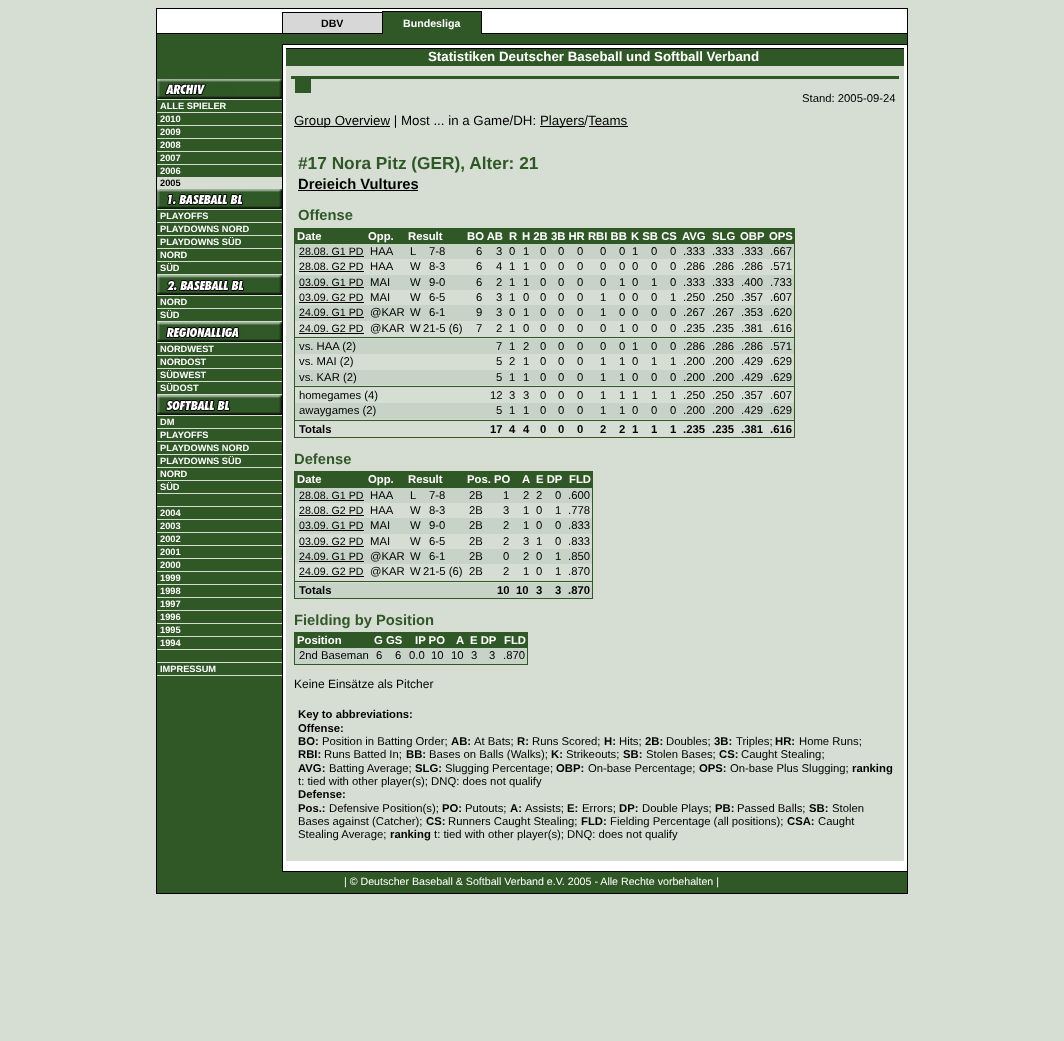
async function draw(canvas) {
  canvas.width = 1064;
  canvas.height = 1041;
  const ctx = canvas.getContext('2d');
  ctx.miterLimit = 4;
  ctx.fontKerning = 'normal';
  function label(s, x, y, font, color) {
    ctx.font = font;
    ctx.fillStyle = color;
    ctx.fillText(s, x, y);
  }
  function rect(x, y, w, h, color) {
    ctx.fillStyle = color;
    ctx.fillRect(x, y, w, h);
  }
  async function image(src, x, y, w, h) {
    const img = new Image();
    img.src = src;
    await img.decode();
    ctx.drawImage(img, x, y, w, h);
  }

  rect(0, 0, 1064, 1041, '#d6ded4');
  ctx.strokeStyle = '#000';
  ctx.strokeRect(156.5, 8.5, 751, 885);
  rect(157, 9, 125, 24, '#fff');
  rect(157, 33, 225, 1, '#000');
  rect(282, 9, 100, 3, '#fff');
  rect(382, 9, 100, 2, '#fff');
  rect(382, 11, 100, 1, '#000');
  rect(482, 9, 425, 24, '#fff');
  rect(482, 33, 425, 1, '#000');
  rect(283, 13, 99, 20, '#d7d7d7');
  rect(282, 12, 100, 1, '#000');
  rect(282, 12, 1, 22, '#000');
  label('DBV', 321, 27, 'bold 10.65px Liberation Sans', '#000');
  rect(383, 12, 98, 22, '#305827');
  rect(481, 12, 1, 22, '#000');
  rect(382, 12, 1, 22, '#000');
  label('Bundesliga', 403, 27, 'bold 10.65px Liberation Sans', '#fff');
  rect(157, 34, 750, 10, '#305827');
  rect(157, 44, 125, 828, '#305827');
  await image('assets/img1.png', 157, 79, 125, 20);
  rect(157, 99, 126, 1, '#d6ded4');
  label('ALLE SPIELER', 160, 109, 'bold 9.25px Liberation Sans', '#fff');
  rect(157, 112, 126, 1, '#d6ded4');
  label('2010', 160, 122, 'bold 9.25px Liberation Sans', '#fff');
  rect(157, 125, 126, 1, '#d6ded4');
  label('2009', 160, 135, 'bold 9.25px Liberation Sans', '#fff');
  rect(157, 138, 126, 1, '#d6ded4');
  label('2008', 160, 148, 'bold 9.25px Liberation Sans', '#fff');
  rect(157, 151, 126, 1, '#d6ded4');
  label('2007', 160, 161, 'bold 9.25px Liberation Sans', '#fff');
  rect(157, 164, 126, 1, '#d6ded4');
  label('2006', 160, 174, 'bold 9.25px Liberation Sans', '#fff');
  rect(157, 178, 125, 11, '#d6ded4');
  rect(157, 177, 126, 1, '#d6ded4');
  label('2005', 160, 186, 'bold 9.25px Liberation Sans', '#000');
  await image('assets/img2.png', 157, 189, 125, 20);
  rect(157, 209, 126, 1, '#d6ded4');
  label('PLAYOFFS', 160, 219, 'bold 9.25px Liberation Sans', '#fff');
  rect(157, 222, 126, 1, '#d6ded4');
  label('PLAYDOWNS NORD', 160, 232, 'bold 9.25px Liberation Sans', '#fff');
  rect(157, 235, 126, 1, '#d6ded4');
  label('PLAYDOWNS SÜD', 160, 245, 'bold 9.25px Liberation Sans', '#fff');
  rect(157, 248, 126, 1, '#d6ded4');
  label('NORD', 160, 258, 'bold 9.25px Liberation Sans', '#fff');
  rect(157, 261, 126, 1, '#d6ded4');
  rect(157, 274, 126, 1, '#d6ded4');
  label('SÜD', 160, 271, 'bold 9.25px Liberation Sans', '#fff');
  await image('assets/img3.png', 157, 275, 125, 20);
  rect(157, 295, 126, 1, '#d6ded4');
  label('NORD', 160, 305, 'bold 9.25px Liberation Sans', '#fff');
  rect(157, 308, 126, 1, '#d6ded4');
  rect(157, 321, 126, 1, '#d6ded4');
  label('SÜD', 160, 318, 'bold 9.25px Liberation Sans', '#fff');
  await image('assets/img4.png', 157, 322, 125, 20);
  rect(157, 342, 126, 1, '#d6ded4');
  label('NORDWEST', 160, 352, 'bold 9.25px Liberation Sans', '#fff');
  rect(157, 355, 126, 1, '#d6ded4');
  label('NORDOST', 160, 365, 'bold 9.25px Liberation Sans', '#fff');
  rect(157, 368, 126, 1, '#d6ded4');
  label('SÜDWEST', 160, 378, 'bold 9.25px Liberation Sans', '#fff');
  rect(157, 381, 126, 1, '#d6ded4');
  rect(157, 394, 126, 1, '#d6ded4');
  label('SÜDOST', 160, 391, 'bold 9.25px Liberation Sans', '#fff');
  await image('assets/img5.png', 157, 395, 125, 20);
  rect(157, 415, 126, 1, '#d6ded4');
  label('DM', 160, 425, 'bold 9.25px Liberation Sans', '#fff');
  rect(157, 428, 126, 1, '#d6ded4');
  label('PLAYOFFS', 160, 438, 'bold 9.25px Liberation Sans', '#fff');
  rect(157, 441, 126, 1, '#d6ded4');
  label('PLAYDOWNS NORD', 160, 451, 'bold 9.25px Liberation Sans', '#fff');
  rect(157, 454, 126, 1, '#d6ded4');
  label('PLAYDOWNS SÜD', 160, 464, 'bold 9.25px Liberation Sans', '#fff');
  rect(157, 467, 126, 1, '#d6ded4');
  label('NORD', 160, 477, 'bold 9.25px Liberation Sans', '#fff');
  rect(157, 480, 126, 1, '#d6ded4');
  rect(157, 493, 126, 1, '#d6ded4');
  label('SÜD', 160, 490, 'bold 9.25px Liberation Sans', '#fff');
  rect(157, 506, 126, 1, '#d6ded4');
  label('2004', 160, 516, 'bold 9.25px Liberation Sans', '#fff');
  rect(157, 519, 126, 1, '#d6ded4');
  label('2003', 160, 529, 'bold 9.25px Liberation Sans', '#fff');
  rect(157, 532, 126, 1, '#d6ded4');
  label('2002', 160, 542, 'bold 9.25px Liberation Sans', '#fff');
  rect(157, 545, 126, 1, '#d6ded4');
  label('2001', 160, 555, 'bold 9.25px Liberation Sans', '#fff');
  rect(157, 558, 126, 1, '#d6ded4');
  label('2000', 160, 568, 'bold 9.25px Liberation Sans', '#fff');
  rect(157, 571, 126, 1, '#d6ded4');
  label('1999', 160, 581, 'bold 9.25px Liberation Sans', '#fff');
  rect(157, 584, 126, 1, '#d6ded4');
  label('1998', 160, 594, 'bold 9.25px Liberation Sans', '#fff');
  rect(157, 597, 126, 1, '#d6ded4');
  label('1997', 160, 607, 'bold 9.25px Liberation Sans', '#fff');
  rect(157, 610, 126, 1, '#d6ded4');
  label('1996', 160, 620, 'bold 9.25px Liberation Sans', '#fff');
  rect(157, 623, 126, 1, '#d6ded4');
  label('1995', 160, 633, 'bold 9.25px Liberation Sans', '#fff');
  rect(157, 636, 126, 1, '#d6ded4');
  rect(157, 649, 126, 1, '#d6ded4');
  label('1994', 160, 646, 'bold 9.25px Liberation Sans', '#fff');
  rect(157, 662, 126, 1, '#d6ded4');
  rect(157, 675, 126, 1, '#d6ded4');
  label('IMPRESSUM', 160, 672, 'bold 9.25px Liberation Sans', '#fff');
  rect(283, 45, 624, 826, '#fff');
  rect(282, 44, 625, 1, '#000');
  rect(282, 871, 625, 1, '#000');
  rect(282, 44, 1, 828, '#000');
  rect(286, 49, 618, 17, '#305827');
  rect(286, 48, 618, 1, '#000');
  label('Statistiken Deutscher Baseball und Softball Verband', 428, 61, 'bold 13.3px Liberation Sans', '#fff');
  rect(286, 66, 618, 795, '#d6ded4');
  rect(291, 76, 608, 3, '#305827');
  rect(295, 79, 16, 14, '#305827');
  label('Stand: 2005-09-24', 802, 102, '11.3px Liberation Sans', '#000');
  rect(294, 126, 96, 1, '#000');
  label('Group Overview | Most ... in a Game/DH:', 294, 125, '13.3px Liberation Sans', '#000');
  rect(540, 126, 45, 1, '#000');
  label('Players/Teams', 540, 125, '13.3px Liberation Sans', '#000');
  rect(589, 126, 39, 1, '#000');
  label('#17 Nora Pitz (GER), Alter: 21', 298, 169, 'bold 17.3px Liberation Sans', '#305827');
  label('Dreieich Vultures', 298, 189, 'bold 14.75px Liberation Sans', '#000');
  rect(298, 190, 120, 1, '#000');
  label('Offense', 298, 220, 'bold 14.75px Liberation Sans', '#305827');
  rect(294, 228, 501, 1, '#305827');
  rect(295, 337, 500, 1, '#305827');
  rect(295, 386, 500, 1, '#305827');
  rect(295, 420, 500, 1, '#305827');
  rect(794, 228, 1, 210, '#305827');
  rect(294, 437, 501, 1, '#305827');
  rect(294, 228, 1, 210, '#305827');
  rect(295, 229, 499, 15, '#305827');
  label('Date', 297, 240, 'bold 11.3px Liberation Sans', '#fff');
  label('Opp.', 368, 240, 'bold 11.3px Liberation Sans', '#fff');
  label('Result', 408, 240, 'bold 11.3px Liberation Sans', '#fff');
  label('BO AB', 467, 240, 'bold 11.3px Liberation Sans', '#fff');
  label('R', 509, 240, 'bold 11.3px Liberation Sans', '#fff');
  label('H 2B 3B HR RBI BB', 522, 240, 'bold 11.3px Liberation Sans', '#fff');
  label('K SB CS', 631, 240, 'bold 11.3px Liberation Sans', '#fff');
  label('AVG', 682, 240, 'bold 11.3px Liberation Sans', '#fff');
  label('SLG', 712, 240, 'bold 11.3px Liberation Sans', '#fff');
  label('OBP', 740, 240, 'bold 11.3px Liberation Sans', '#fff');
  label('OPS', 769, 240, 'bold 11.3px Liberation Sans', '#fff');
  rect(295, 244, 499, 15, '#c7d3c6');
  label('28.08. G1 PD', 299, 255, '10.65px Liberation Sans', '#000');
  rect(299, 256, 65, 1, '#000');
  label('HAA', 370, 255, '11.3px Liberation Sans', '#000');
  label('L', 410, 255, '11.3px Liberation Sans', '#000');
  label('7-8', 429, 255, '11.3px Liberation Sans', '#000');
  label('6', 476, 255, '11.3px Liberation Sans', '#000');
  label('3', 496, 255, '11.3px Liberation Sans', '#000');
  label('0', 509, 255, '11.3px Liberation Sans', '#000');
  label('1', 523, 255, '11.3px Liberation Sans', '#000');
  label('0', 540, 255, '11.3px Liberation Sans', '#000');
  label('0', 558, 255, '11.3px Liberation Sans', '#000');
  label('0', 577, 255, '11.3px Liberation Sans', '#000');
  label('0', 600, 255, '11.3px Liberation Sans', '#000');
  label('0', 619, 255, '11.3px Liberation Sans', '#000');
  label('1', 632, 255, '11.3px Liberation Sans', '#000');
  label('0', 651, 255, '11.3px Liberation Sans', '#000');
  label('0', 670, 255, '11.3px Liberation Sans', '#000');
  label('.333', 683, 255, '11.3px Liberation Sans', '#000');
  label('.333', 712, 255, '11.3px Liberation Sans', '#000');
  label('.333', 741, 255, '11.3px Liberation Sans', '#000');
  label('.667', 770, 255, '11.3px Liberation Sans', '#000');
  label('28.08. G2 PD', 299, 270, '10.65px Liberation Sans', '#000');
  rect(299, 271, 65, 1, '#000');
  label('HAA', 370, 270, '11.3px Liberation Sans', '#000');
  label('W', 410, 270, '11.3px Liberation Sans', '#000');
  label('8-3', 429, 270, '11.3px Liberation Sans', '#000');
  label('6', 476, 270, '11.3px Liberation Sans', '#000');
  label('4', 496, 270, '11.3px Liberation Sans', '#000');
  label('1', 509, 270, '11.3px Liberation Sans', '#000');
  label('1', 523, 270, '11.3px Liberation Sans', '#000');
  label('0', 540, 270, '11.3px Liberation Sans', '#000');
  label('0', 558, 270, '11.3px Liberation Sans', '#000');
  label('0', 577, 270, '11.3px Liberation Sans', '#000');
  label('0', 600, 270, '11.3px Liberation Sans', '#000');
  label('0', 619, 270, '11.3px Liberation Sans', '#000');
  label('0', 632, 270, '11.3px Liberation Sans', '#000');
  label('0', 651, 270, '11.3px Liberation Sans', '#000');
  label('0', 670, 270, '11.3px Liberation Sans', '#000');
  label('.286', 683, 270, '11.3px Liberation Sans', '#000');
  label('.286', 712, 270, '11.3px Liberation Sans', '#000');
  label('.286', 741, 270, '11.3px Liberation Sans', '#000');
  label('.571', 770, 270, '11.3px Liberation Sans', '#000');
  rect(295, 275, 499, 15, '#c7d3c6');
  label('03.09. G1 PD', 299, 286, '10.65px Liberation Sans', '#000');
  rect(299, 287, 65, 1, '#000');
  label('MAI', 370, 286, '11.3px Liberation Sans', '#000');
  label('W', 410, 286, '11.3px Liberation Sans', '#000');
  label('9-0', 429, 286, '11.3px Liberation Sans', '#000');
  label('6', 476, 286, '11.3px Liberation Sans', '#000');
  label('2', 496, 286, '11.3px Liberation Sans', '#000');
  label('1', 509, 286, '11.3px Liberation Sans', '#000');
  label('1', 523, 286, '11.3px Liberation Sans', '#000');
  label('0', 540, 286, '11.3px Liberation Sans', '#000');
  label('0', 558, 286, '11.3px Liberation Sans', '#000');
  label('0', 577, 286, '11.3px Liberation Sans', '#000');
  label('0', 600, 286, '11.3px Liberation Sans', '#000');
  label('1', 619, 286, '11.3px Liberation Sans', '#000');
  label('0', 632, 286, '11.3px Liberation Sans', '#000');
  label('1', 651, 286, '11.3px Liberation Sans', '#000');
  label('0', 670, 286, '11.3px Liberation Sans', '#000');
  label('.333', 683, 286, '11.3px Liberation Sans', '#000');
  label('.333', 712, 286, '11.3px Liberation Sans', '#000');
  label('.400', 741, 286, '11.3px Liberation Sans', '#000');
  label('.733', 770, 286, '11.3px Liberation Sans', '#000');
  label('03.09. G2 PD', 299, 301, '10.65px Liberation Sans', '#000');
  rect(299, 302, 65, 1, '#000');
  label('MAI', 370, 301, '11.3px Liberation Sans', '#000');
  label('W', 410, 301, '11.3px Liberation Sans', '#000');
  label('6-5', 429, 301, '11.3px Liberation Sans', '#000');
  label('6', 476, 301, '11.3px Liberation Sans', '#000');
  label('3', 496, 301, '11.3px Liberation Sans', '#000');
  label('1', 509, 301, '11.3px Liberation Sans', '#000');
  label('0', 523, 301, '11.3px Liberation Sans', '#000');
  label('0', 540, 301, '11.3px Liberation Sans', '#000');
  label('0', 558, 301, '11.3px Liberation Sans', '#000');
  label('0', 577, 301, '11.3px Liberation Sans', '#000');
  label('1', 600, 301, '11.3px Liberation Sans', '#000');
  label('0', 619, 301, '11.3px Liberation Sans', '#000');
  label('0', 632, 301, '11.3px Liberation Sans', '#000');
  label('0', 651, 301, '11.3px Liberation Sans', '#000');
  label('1', 670, 301, '11.3px Liberation Sans', '#000');
  label('.250', 683, 301, '11.3px Liberation Sans', '#000');
  label('.250', 712, 301, '11.3px Liberation Sans', '#000');
  label('.357', 741, 301, '11.3px Liberation Sans', '#000');
  label('.607', 770, 301, '11.3px Liberation Sans', '#000');
  rect(295, 305, 499, 16, '#c7d3c6');
  label('24.09. G1 PD', 299, 316, '10.65px Liberation Sans', '#000');
  rect(299, 317, 65, 1, '#000');
  label('@KAR', 370, 316, '11.3px Liberation Sans', '#000');
  label('W', 410, 316, '11.3px Liberation Sans', '#000');
  label('6-1', 429, 316, '11.3px Liberation Sans', '#000');
  label('9', 476, 316, '11.3px Liberation Sans', '#000');
  label('3', 496, 316, '11.3px Liberation Sans', '#000');
  label('0', 509, 316, '11.3px Liberation Sans', '#000');
  label('1', 523, 316, '11.3px Liberation Sans', '#000');
  label('0', 540, 316, '11.3px Liberation Sans', '#000');
  label('0', 558, 316, '11.3px Liberation Sans', '#000');
  label('0', 577, 316, '11.3px Liberation Sans', '#000');
  label('1', 600, 316, '11.3px Liberation Sans', '#000');
  label('0', 619, 316, '11.3px Liberation Sans', '#000');
  label('0', 632, 316, '11.3px Liberation Sans', '#000');
  label('0', 651, 316, '11.3px Liberation Sans', '#000');
  label('0', 670, 316, '11.3px Liberation Sans', '#000');
  label('.267', 683, 316, '11.3px Liberation Sans', '#000');
  label('.267', 712, 316, '11.3px Liberation Sans', '#000');
  label('.353', 741, 316, '11.3px Liberation Sans', '#000');
  label('.620', 770, 316, '11.3px Liberation Sans', '#000');
  label('24.09. G2 PD', 299, 332, '10.65px Liberation Sans', '#000');
  rect(299, 333, 65, 1, '#000');
  label('@KAR', 370, 332, '11.3px Liberation Sans', '#000');
  label('W', 410, 332, '11.3px Liberation Sans', '#000');
  label('21-5 (6)', 423, 332, '11.3px Liberation Sans', '#000');
  label('7', 476, 332, '11.3px Liberation Sans', '#000');
  label('2', 496, 332, '11.3px Liberation Sans', '#000');
  label('1', 509, 332, '11.3px Liberation Sans', '#000');
  label('0', 523, 332, '11.3px Liberation Sans', '#000');
  label('0', 540, 332, '11.3px Liberation Sans', '#000');
  label('0', 558, 332, '11.3px Liberation Sans', '#000');
  label('0', 577, 332, '11.3px Liberation Sans', '#000');
  label('0', 600, 332, '11.3px Liberation Sans', '#000');
  label('1', 619, 332, '11.3px Liberation Sans', '#000');
  label('0', 632, 332, '11.3px Liberation Sans', '#000');
  label('0', 651, 332, '11.3px Liberation Sans', '#000');
  label('0', 670, 332, '11.3px Liberation Sans', '#000');
  label('.235', 683, 332, '11.3px Liberation Sans', '#000');
  label('.235', 712, 332, '11.3px Liberation Sans', '#000');
  label('.381', 741, 332, '11.3px Liberation Sans', '#000');
  label('.616', 770, 332, '11.3px Liberation Sans', '#000');
  rect(295, 339, 499, 15, '#c7d3c6');
  label('vs. HAA (2)', 299, 350, '11.3px Liberation Sans', '#000');
  label('7', 496, 350, '11.3px Liberation Sans', '#000');
  label('1', 509, 350, '11.3px Liberation Sans', '#000');
  label('2', 523, 350, '11.3px Liberation Sans', '#000');
  label('0', 540, 350, '11.3px Liberation Sans', '#000');
  label('0', 558, 350, '11.3px Liberation Sans', '#000');
  label('0', 577, 350, '11.3px Liberation Sans', '#000');
  label('0', 600, 350, '11.3px Liberation Sans', '#000');
  label('0', 619, 350, '11.3px Liberation Sans', '#000');
  label('1', 632, 350, '11.3px Liberation Sans', '#000');
  label('0', 651, 350, '11.3px Liberation Sans', '#000');
  label('0', 670, 350, '11.3px Liberation Sans', '#000');
  label('.286', 683, 350, '11.3px Liberation Sans', '#000');
  label('.286', 712, 350, '11.3px Liberation Sans', '#000');
  label('.286', 741, 350, '11.3px Liberation Sans', '#000');
  label('.571', 770, 350, '11.3px Liberation Sans', '#000');
  label('vs. MAI (2)', 299, 365, '11.3px Liberation Sans', '#000');
  label('5', 496, 365, '11.3px Liberation Sans', '#000');
  label('2', 509, 365, '11.3px Liberation Sans', '#000');
  label('1', 523, 365, '11.3px Liberation Sans', '#000');
  label('0', 540, 365, '11.3px Liberation Sans', '#000');
  label('0', 558, 365, '11.3px Liberation Sans', '#000');
  label('0', 577, 365, '11.3px Liberation Sans', '#000');
  label('1', 600, 365, '11.3px Liberation Sans', '#000');
  label('1', 619, 365, '11.3px Liberation Sans', '#000');
  label('0', 632, 365, '11.3px Liberation Sans', '#000');
  label('1', 651, 365, '11.3px Liberation Sans', '#000');
  label('1', 670, 365, '11.3px Liberation Sans', '#000');
  label('.200', 683, 365, '11.3px Liberation Sans', '#000');
  label('.200', 712, 365, '11.3px Liberation Sans', '#000');
  label('.429', 741, 365, '11.3px Liberation Sans', '#000');
  label('.629', 770, 365, '11.3px Liberation Sans', '#000');
  rect(295, 370, 499, 15, '#c7d3c6');
  label('vs. KAR (2)', 299, 381, '11.3px Liberation Sans', '#000');
  label('5', 496, 381, '11.3px Liberation Sans', '#000');
  label('1', 509, 381, '11.3px Liberation Sans', '#000');
  label('1', 523, 381, '11.3px Liberation Sans', '#000');
  label('0', 540, 381, '11.3px Liberation Sans', '#000');
  label('0', 558, 381, '11.3px Liberation Sans', '#000');
  label('0', 577, 381, '11.3px Liberation Sans', '#000');
  label('1', 600, 381, '11.3px Liberation Sans', '#000');
  label('1', 619, 381, '11.3px Liberation Sans', '#000');
  label('0', 632, 381, '11.3px Liberation Sans', '#000');
  label('0', 651, 381, '11.3px Liberation Sans', '#000');
  label('0', 670, 381, '11.3px Liberation Sans', '#000');
  label('.200', 683, 381, '11.3px Liberation Sans', '#000');
  label('.200', 712, 381, '11.3px Liberation Sans', '#000');
  label('.429', 741, 381, '11.3px Liberation Sans', '#000');
  label('.629', 770, 381, '11.3px Liberation Sans', '#000');
  label('homegames (4)', 299, 399, '11.3px Liberation Sans', '#000');
  label('12', 490, 399, '11.3px Liberation Sans', '#000');
  label('3', 509, 399, '11.3px Liberation Sans', '#000');
  label('3', 523, 399, '11.3px Liberation Sans', '#000');
  label('0', 540, 399, '11.3px Liberation Sans', '#000');
  label('0', 558, 399, '11.3px Liberation Sans', '#000');
  label('0', 577, 399, '11.3px Liberation Sans', '#000');
  label('1', 600, 399, '11.3px Liberation Sans', '#000');
  label('1', 619, 399, '11.3px Liberation Sans', '#000');
  label('1', 632, 399, '11.3px Liberation Sans', '#000');
  label('1', 651, 399, '11.3px Liberation Sans', '#000');
  label('1', 670, 399, '11.3px Liberation Sans', '#000');
  label('.250', 683, 399, '11.3px Liberation Sans', '#000');
  label('.250', 712, 399, '11.3px Liberation Sans', '#000');
  label('.357', 741, 399, '11.3px Liberation Sans', '#000');
  label('.607', 770, 399, '11.3px Liberation Sans', '#000');
  rect(295, 403, 499, 16, '#c7d3c6');
  label('awaygames (2)', 299, 414, '11.3px Liberation Sans', '#000');
  label('5', 496, 414, '11.3px Liberation Sans', '#000');
  label('1', 509, 414, '11.3px Liberation Sans', '#000');
  label('1', 523, 414, '11.3px Liberation Sans', '#000');
  label('0', 540, 414, '11.3px Liberation Sans', '#000');
  label('0', 558, 414, '11.3px Liberation Sans', '#000');
  label('0', 577, 414, '11.3px Liberation Sans', '#000');
  label('1', 600, 414, '11.3px Liberation Sans', '#000');
  label('1', 619, 414, '11.3px Liberation Sans', '#000');
  label('0', 632, 414, '11.3px Liberation Sans', '#000');
  label('0', 651, 414, '11.3px Liberation Sans', '#000');
  label('0', 670, 414, '11.3px Liberation Sans', '#000');
  label('.200', 683, 414, '11.3px Liberation Sans', '#000');
  label('.200', 712, 414, '11.3px Liberation Sans', '#000');
  label('.429', 741, 414, '11.3px Liberation Sans', '#000');
  label('.629', 770, 414, '11.3px Liberation Sans', '#000');
  label('Totals', 299, 433, 'bold 11.3px Liberation Sans', '#000');
  label('17', 490, 433, 'bold 11.3px Liberation Sans', '#000');
  label('4', 509, 433, 'bold 11.3px Liberation Sans', '#000');
  label('4', 523, 433, 'bold 11.3px Liberation Sans', '#000');
  label('0', 540, 433, 'bold 11.3px Liberation Sans', '#000');
  label('0', 558, 433, 'bold 11.3px Liberation Sans', '#000');
  label('0', 577, 433, 'bold 11.3px Liberation Sans', '#000');
  label('2', 600, 433, 'bold 11.3px Liberation Sans', '#000');
  label('2', 619, 433, 'bold 11.3px Liberation Sans', '#000');
  label('1', 632, 433, 'bold 11.3px Liberation Sans', '#000');
  label('1', 651, 433, 'bold 11.3px Liberation Sans', '#000');
  label('1', 670, 433, 'bold 11.3px Liberation Sans', '#000');
  label('.235', 683, 433, 'bold 11.3px Liberation Sans', '#000');
  label('.235', 712, 433, 'bold 11.3px Liberation Sans', '#000');
  label('.381', 741, 433, 'bold 11.3px Liberation Sans', '#000');
  label('.616', 770, 433, 'bold 11.3px Liberation Sans', '#000');
  label('Defense', 294, 464, 'bold 14.75px Liberation Sans', '#305827');
  rect(294, 471, 299, 1, '#305827');
  rect(295, 581, 298, 1, '#305827');
  rect(592, 471, 1, 128, '#305827');
  rect(294, 598, 299, 1, '#305827');
  rect(294, 471, 1, 128, '#305827');
  rect(295, 472, 297, 16, '#305827');
  label('Date', 297, 483, 'bold 11.3px Liberation Sans', '#fff');
  label('Opp.', 368, 483, 'bold 11.3px Liberation Sans', '#fff');
  label('Result', 408, 483, 'bold 11.3px Liberation Sans', '#fff');
  label('Pos. PO', 467, 483, 'bold 11.3px Liberation Sans', '#fff');
  label('A', 522, 483, 'bold 11.3px Liberation Sans', '#fff');
  label('E DP', 536, 483, 'bold 11.3px Liberation Sans', '#fff');
  label('FLD', 569, 483, 'bold 11.3px Liberation Sans', '#fff');
  rect(295, 488, 297, 15, '#c7d3c6');
  label('28.08. G1 PD', 299, 499, '10.65px Liberation Sans', '#000');
  rect(299, 500, 65, 1, '#000');
  label('HAA', 370, 499, '11.3px Liberation Sans', '#000');
  label('L', 410, 499, '11.3px Liberation Sans', '#000');
  label('7-8', 429, 499, '11.3px Liberation Sans', '#000');
  label('2B', 469, 499, '11.3px Liberation Sans', '#000');
  label('1', 503, 499, '11.3px Liberation Sans', '#000');
  label('2', 523, 499, '11.3px Liberation Sans', '#000');
  label('2', 536, 499, '11.3px Liberation Sans', '#000');
  label('0', 555, 499, '11.3px Liberation Sans', '#000');
  label('.600', 568, 499, '11.3px Liberation Sans', '#000');
  label('28.08. G2 PD', 299, 514, '10.65px Liberation Sans', '#000');
  rect(299, 515, 65, 1, '#000');
  label('HAA', 370, 514, '11.3px Liberation Sans', '#000');
  label('W', 410, 514, '11.3px Liberation Sans', '#000');
  label('8-3', 429, 514, '11.3px Liberation Sans', '#000');
  label('2B', 469, 514, '11.3px Liberation Sans', '#000');
  label('3', 503, 514, '11.3px Liberation Sans', '#000');
  label('1', 523, 514, '11.3px Liberation Sans', '#000');
  label('0', 536, 514, '11.3px Liberation Sans', '#000');
  label('1', 555, 514, '11.3px Liberation Sans', '#000');
  label('.778', 568, 514, '11.3px Liberation Sans', '#000');
  rect(295, 518, 297, 16, '#c7d3c6');
  label('03.09. G1 PD', 299, 529, '10.65px Liberation Sans', '#000');
  rect(299, 530, 65, 1, '#000');
  label('MAI', 370, 529, '11.3px Liberation Sans', '#000');
  label('W', 410, 529, '11.3px Liberation Sans', '#000');
  label('9-0', 429, 529, '11.3px Liberation Sans', '#000');
  label('2B', 469, 529, '11.3px Liberation Sans', '#000');
  label('2', 503, 529, '11.3px Liberation Sans', '#000');
  label('1', 523, 529, '11.3px Liberation Sans', '#000');
  label('0', 536, 529, '11.3px Liberation Sans', '#000');
  label('0', 555, 529, '11.3px Liberation Sans', '#000');
  label('.833', 568, 529, '11.3px Liberation Sans', '#000');
  label('03.09. G2 PD', 299, 545, '10.65px Liberation Sans', '#000');
  rect(299, 546, 65, 1, '#000');
  label('MAI', 370, 545, '11.3px Liberation Sans', '#000');
  label('W', 410, 545, '11.3px Liberation Sans', '#000');
  label('6-5', 429, 545, '11.3px Liberation Sans', '#000');
  label('2B', 469, 545, '11.3px Liberation Sans', '#000');
  label('2', 503, 545, '11.3px Liberation Sans', '#000');
  label('3', 523, 545, '11.3px Liberation Sans', '#000');
  label('1', 536, 545, '11.3px Liberation Sans', '#000');
  label('0', 555, 545, '11.3px Liberation Sans', '#000');
  label('.833', 568, 545, '11.3px Liberation Sans', '#000');
  rect(295, 549, 297, 15, '#c7d3c6');
  label('24.09. G1 PD', 299, 560, '10.65px Liberation Sans', '#000');
  rect(299, 561, 65, 1, '#000');
  label('@KAR', 370, 560, '11.3px Liberation Sans', '#000');
  label('W', 410, 560, '11.3px Liberation Sans', '#000');
  label('6-1', 429, 560, '11.3px Liberation Sans', '#000');
  label('2B', 469, 560, '11.3px Liberation Sans', '#000');
  label('0', 503, 560, '11.3px Liberation Sans', '#000');
  label('2', 523, 560, '11.3px Liberation Sans', '#000');
  label('0', 536, 560, '11.3px Liberation Sans', '#000');
  label('1', 555, 560, '11.3px Liberation Sans', '#000');
  label('.850', 568, 560, '11.3px Liberation Sans', '#000');
  label('24.09. G2 PD', 299, 575, '10.65px Liberation Sans', '#000');
  rect(299, 576, 65, 1, '#000');
  label('@KAR', 370, 575, '11.3px Liberation Sans', '#000');
  label('W', 410, 575, '11.3px Liberation Sans', '#000');
  label('21-5 (6)', 423, 575, '11.3px Liberation Sans', '#000');
  label('2B', 469, 575, '11.3px Liberation Sans', '#000');
  label('2', 503, 575, '11.3px Liberation Sans', '#000');
  label('1', 523, 575, '11.3px Liberation Sans', '#000');
  label('0', 536, 575, '11.3px Liberation Sans', '#000');
  label('1', 555, 575, '11.3px Liberation Sans', '#000');
  label('.870', 568, 575, '11.3px Liberation Sans', '#000');
  rect(295, 583, 297, 15, '#c7d3c6');
  label('Totals', 299, 594, 'bold 11.3px Liberation Sans', '#000');
  label('10', 497, 594, 'bold 11.3px Liberation Sans', '#000');
  label('10', 516, 594, 'bold 11.3px Liberation Sans', '#000');
  label('3', 536, 594, 'bold 11.3px Liberation Sans', '#000');
  label('3', 555, 594, 'bold 11.3px Liberation Sans', '#000');
  label('.870', 568, 594, 'bold 11.3px Liberation Sans', '#000');
  label('Fielding by Position', 294, 625, 'bold 14.75px Liberation Sans', '#305827');
  rect(294, 632, 234, 1, '#305827');
  rect(527, 632, 1, 33, '#305827');
  rect(294, 664, 234, 1, '#305827');
  rect(294, 632, 1, 33, '#305827');
  rect(295, 633, 232, 15, '#305827');
  label('Position', 297, 644, 'bold 11.3px Liberation Sans', '#fff');
  label('G GS', 374, 644, 'bold 11.3px Liberation Sans', '#fff');
  label('IP PO', 415, 644, 'bold 11.3px Liberation Sans', '#fff');
  label('A', 456, 644, 'bold 11.3px Liberation Sans', '#fff');
  label('E DP', 470, 644, 'bold 11.3px Liberation Sans', '#fff');
  label('FLD', 504, 644, 'bold 11.3px Liberation Sans', '#fff');
  rect(295, 648, 232, 16, '#c7d3c6');
  label('2nd Baseman', 299, 659, '11.3px Liberation Sans', '#000');
  label('6', 376, 659, '11.3px Liberation Sans', '#000');
  label('6', 395, 659, '11.3px Liberation Sans', '#000');
  label('0.0', 409, 659, '11.3px Liberation Sans', '#000');
  label('10', 431, 659, '11.3px Liberation Sans', '#000');
  label('10', 451, 659, '11.3px Liberation Sans', '#000');
  label('3', 471, 659, '11.3px Liberation Sans', '#000');
  label('3', 489, 659, '11.3px Liberation Sans', '#000');
  label('.870', 503, 659, '11.3px Liberation Sans', '#000');
  label('Keine Einsätze als Pitcher', 294, 688, '12px Liberation Sans', '#000');
  label('Key to abbreviations:', 298, 718, 'bold 11.3px Liberation Sans', '#000');
  label('Offense:', 298, 732, 'bold 11.3px Liberation Sans', '#000');
  label('BO:', 298, 745, 'bold 11.3px Liberation Sans', '#000');
  label('Position in Batting Order;', 322, 745, '11.3px Liberation Sans', '#000');
  label('AB:', 451, 745, 'bold 11.3px Liberation Sans', '#000');
  label('At Bats;', 474, 745, '11.3px Liberation Sans', '#000');
  label('R:', 517, 745, 'bold 11.3px Liberation Sans', '#000');
  label('Runs Scored;', 532, 745, '11.3px Liberation Sans', '#000');
  label('H:', 604, 745, 'bold 11.3px Liberation Sans', '#000');
  label('Hits;', 619, 745, '11.3px Liberation Sans', '#000');
  label('2B:', 645, 745, 'bold 11.3px Liberation Sans', '#000');
  label('Doubles;', 666, 745, '11.3px Liberation Sans', '#000');
  label('3B:', 714, 745, 'bold 11.3px Liberation Sans', '#000');
  label('Triples;', 736, 745, '11.3px Liberation Sans', '#000');
  label('HR:', 775, 745, 'bold 11.3px Liberation Sans', '#000');
  label('Home Runs;', 799, 745, '11.3px Liberation Sans', '#000');
  label('RBI:', 298, 758, 'bold 11.3px Liberation Sans', '#000');
  label('Runs Batted In;', 324, 758, '11.3px Liberation Sans', '#000');
  label('BB:', 406, 758, 'bold 11.3px Liberation Sans', '#000');
  label('Bases on Balls (Walks);', 429, 758, '11.3px Liberation Sans', '#000');
  label('K:', 551, 758, 'bold 11.3px Liberation Sans', '#000');
  label('Strikeouts;', 566, 758, '11.3px Liberation Sans', '#000');
  label('SB:', 623, 758, 'bold 11.3px Liberation Sans', '#000');
  label('Stolen Bases;', 646, 758, '11.3px Liberation Sans', '#000');
  label('CS:', 719, 758, 'bold 11.3px Liberation Sans', '#000');
  label('Caught Stealing;', 741, 758, '11.3px Liberation Sans', '#000');
  label('AVG:', 298, 772, 'bold 11.3px Liberation Sans', '#000');
  label('Batting Average;', 329, 772, '11.3px Liberation Sans', '#000');
  label('SLG:', 415, 772, 'bold 11.3px Liberation Sans', '#000');
  label('Slugging Percentage;', 445, 772, '11.3px Liberation Sans', '#000');
  label('OBP:', 556, 772, 'bold 11.3px Liberation Sans', '#000');
  label('On-base Percentage;', 588, 772, '11.3px Liberation Sans', '#000');
  label('OPS:', 699, 772, 'bold 11.3px Liberation Sans', '#000');
  label('On-base Plus Slugging;', 730, 772, '11.3px Liberation Sans', '#000');
  label('ranking', 852, 772, 'bold 11.3px Liberation Sans', '#000');
  label('t: tied with other player(s); DNQ: does not qualify', 298, 785, '11.3px Liberation Sans', '#000');
  label('Defense:', 298, 798, 'bold 11.3px Liberation Sans', '#000');
  label('Pos.:', 298, 812, 'bold 11.3px Liberation Sans', '#000');
  label('Defensive Position(s);', 329, 812, '11.3px Liberation Sans', '#000');
  label('PO:', 442, 812, 'bold 11.3px Liberation Sans', '#000');
  label('Putouts;', 465, 812, '11.3px Liberation Sans', '#000');
  label('A:', 510, 812, 'bold 11.3px Liberation Sans', '#000');
  label('Assists;', 525, 812, '11.3px Liberation Sans', '#000');
  label('E:', 567, 812, 'bold 11.3px Liberation Sans', '#000');
  label('Errors;', 582, 812, '11.3px Liberation Sans', '#000');
  label('DP:', 619, 812, 'bold 11.3px Liberation Sans', '#000');
  label('Double Plays;', 642, 812, '11.3px Liberation Sans', '#000');
  label('PB:', 715, 812, 'bold 11.3px Liberation Sans', '#000');
  label('Passed Balls;', 737, 812, '11.3px Liberation Sans', '#000');
  label('SB:', 809, 812, 'bold 11.3px Liberation Sans', '#000');
  label('Stolen', 832, 812, '11.3px Liberation Sans', '#000');
  label('Bases against (Catcher);', 298, 825, '11.3px Liberation Sans', '#000');
  label('CS:', 426, 825, 'bold 11.3px Liberation Sans', '#000');
  label('Runners Caught Stealing;', 448, 825, '11.3px Liberation Sans', '#000');
  label('FLD:', 581, 825, 'bold 11.3px Liberation Sans', '#000');
  label('Fielding Percentage (all positions);', 610, 825, '11.3px Liberation Sans', '#000');
  label('CSA:', 787, 825, 'bold 11.3px Liberation Sans', '#000');
  label('Caught', 818, 825, '11.3px Liberation Sans', '#000');
  label('Stealing Average;', 298, 838, '11.3px Liberation Sans', '#000');
  label('ranking', 390, 838, 'bold 11.3px Liberation Sans', '#000');
  label('t: tied with other player(s); DNQ: does not qualify', 434, 838, '11.3px Liberation Sans', '#000');
  rect(157, 872, 750, 21, '#305827');
  label('| © Deutscher Baseball & Softball Verband e.V. 2005 - Alle Rechte vorbehalten |', 344, 885, '10.65px Liberation Sans', '#fff');
}

draw(document.querySelector('canvas'));
